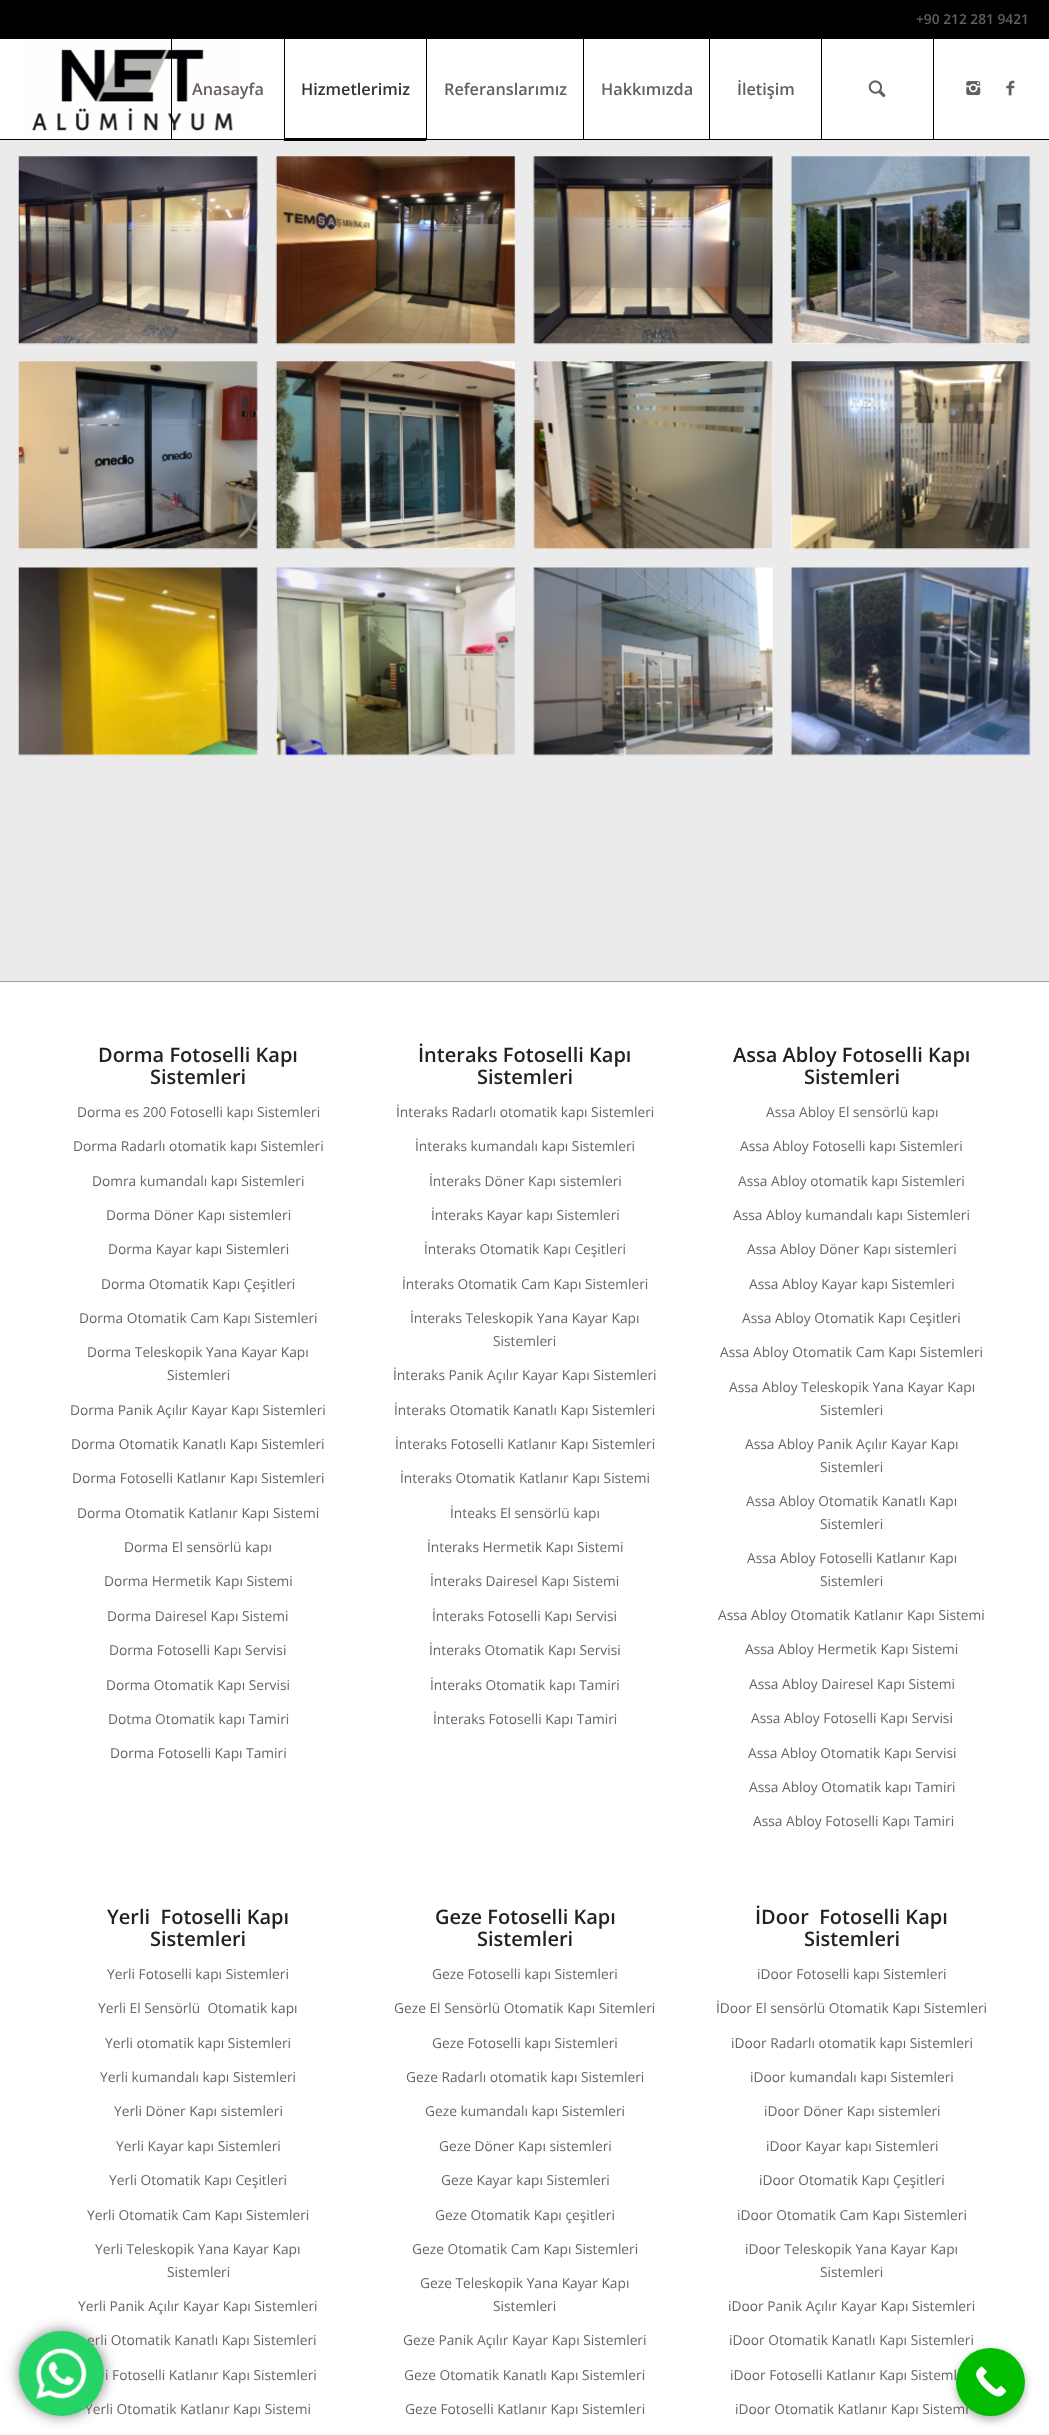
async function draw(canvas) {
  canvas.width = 1049;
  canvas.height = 2435;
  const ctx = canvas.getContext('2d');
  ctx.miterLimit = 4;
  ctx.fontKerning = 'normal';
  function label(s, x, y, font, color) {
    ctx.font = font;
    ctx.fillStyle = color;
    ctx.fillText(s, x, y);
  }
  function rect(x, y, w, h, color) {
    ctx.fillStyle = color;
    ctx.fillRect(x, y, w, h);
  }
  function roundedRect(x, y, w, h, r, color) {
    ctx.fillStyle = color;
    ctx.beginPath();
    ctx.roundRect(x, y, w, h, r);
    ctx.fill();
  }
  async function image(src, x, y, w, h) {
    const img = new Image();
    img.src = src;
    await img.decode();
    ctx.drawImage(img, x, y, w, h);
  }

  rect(0, 0, 1049, 2435, '#fff');
  ctx.fillStyle = '#00000080';
  ctx.filter = 'blur(7px)';
  ctx.beginPath();
  ctx.roundRect(19, 2331, 85, 85, 42.5);
  ctx.fill();
  ctx.filter = 'none';
  label('erli Otomatik Kanatlı Kapı Sistemleri', 87, 2345, '13.75px Open Sans', '#666');
  label('Yerli Otomatik Katlanır Kapı Sistemi', 85, 2414, '13.75px Open Sans', '#666');
  ctx.fillStyle = '#25d366';
  ctx.beginPath();
  ctx.arc(61.5, 2373.5, 42.5, 0, 2 * Math.PI);
  ctx.fill();
  await image('assets/img1.png', 36, 2348, 51, 51);
  rect(0, 0, 1049, 39, '#000');
  label('+90 212 281 9421', 916, 24, '600 13.75px Open Sans', '#635e63');
  rect(0, 139, 1049, 1, '#000');
  await image('assets/img2.png', 21, 39, 223, 100);
  rect(171, 39, 1, 100, '#000');
  label('Anasayfa', 192, 95, '600 16.25px Open Sans', '#635e63');
  rect(284, 39, 1, 100, '#000');
  label('Hizmetlerimiz', 301, 95, '600 16.25px Open Sans', '#333');
  rect(0, 140, 1049, 841, '#ebebeb');
  rect(284, 138, 142, 3, '#030303');
  rect(426, 39, 1, 100, '#000');
  label('Referanslarımız', 444, 95, '600 16.25px Open Sans', '#635e63');
  rect(583, 39, 1, 100, '#000');
  label('Hakkımızda', 601, 95, '600 16.25px Open Sans', '#635e63');
  rect(709, 39, 1, 100, '#000');
  label('İletişim', 737, 95, '600 16.25px Open Sans', '#635e63');
  rect(933, 39, 1, 100, '#000');
  rect(821, 39, 1, 100, '#000');
  await image('assets/img3.png', 868, 80, 18, 18);
  await image('assets/img4.png', 966, 81, 15, 15);
  await image('assets/img5.png', 1006, 80, 9, 16);
  rect(19, 156, 239, 188, '#fff');
  await image('assets/img6.png', 18, 156, 240, 189);
  rect(276, 156, 239, 188, '#fff');
  await image('assets/img7.png', 275, 156, 241, 189);
  rect(534, 156, 239, 188, '#fff');
  await image('assets/img8.png', 533, 156, 240, 189);
  rect(791, 156, 239, 188, '#fff');
  await image('assets/img9.png', 790, 156, 241, 189);
  rect(19, 361, 239, 188, '#fff');
  await image('assets/img10.png', 18, 361, 240, 189);
  rect(276, 361, 239, 188, '#fff');
  await image('assets/img11.png', 275, 361, 241, 189);
  rect(534, 361, 239, 188, '#fff');
  await image('assets/img12.png', 533, 361, 240, 189);
  rect(791, 361, 239, 188, '#fff');
  await image('assets/img13.png', 791, 361, 240, 189);
  rect(19, 568, 239, 187, '#fff');
  await image('assets/img14.png', 18, 567, 240, 189);
  rect(276, 568, 239, 187, '#fff');
  await image('assets/img15.png', 275, 567, 241, 189);
  rect(534, 568, 239, 187, '#fff');
  await image('assets/img16.png', 533, 567, 240, 189);
  rect(791, 568, 239, 187, '#fff');
  await image('assets/img17.png', 790, 567, 241, 189);
  rect(0, 981, 1049, 1, '#a19ca1');
  label('Dorma Fotoselli Kapı', 98, 1062, '600 20px Open Sans', '#222');
  label('Sistemleri', 150, 1084, '600 20px Open Sans', '#222');
  label('Dorma es 200 Fotoselli kapı Sistemleri', 77, 1117, '13.75px Open Sans', '#666');
  label('Dorma Radarlı otomatik kapı Sistemleri', 73, 1151, '13.75px Open Sans', '#666');
  label('Domra kumandalı kapı Sistemleri', 92, 1186, '13.75px Open Sans', '#666');
  label('Dorma Döner Kapı sistemleri', 106, 1220, '13.75px Open Sans', '#666');
  label('Dorma Kayar kapı Sistemleri', 108, 1254, '13.75px Open Sans', '#666');
  label('Dorma Otomatik Kapı Çeşitleri', 101, 1289, '13.75px Open Sans', '#666');
  label('Dorma Otomatik Cam Kapı Sistemleri', 79, 1323, '13.75px Open Sans', '#666');
  label('Dorma Teleskopik Yana Kayar Kapı', 87, 1357, '13.75px Open Sans', '#666');
  label('Sistemleri', 167, 1380, '13.75px Open Sans', '#666');
  label('Dorma Panik Açılır Kayar Kapı Sistemleri', 70, 1415, '13.75px Open Sans', '#666');
  label('Dorma Otomatik Kanatlı Kapı Sistemleri', 71, 1449, '13.75px Open Sans', '#666');
  label('Dorma Fotoselli Katlanır Kapı Sistemleri', 72, 1483, '13.75px Open Sans', '#666');
  label('Dorma Otomatik Katlanır Kapı Sistemi', 77, 1518, '13.75px Open Sans', '#666');
  label('Dorma El sensörlü kapı', 124, 1552, '13.75px Open Sans', '#666');
  label('Dorma Hermetik Kapı Sistemi', 104, 1586, '13.75px Open Sans', '#666');
  label('Dorma Dairesel Kapı Sistemi', 107, 1621, '13.75px Open Sans', '#666');
  label('Dorma Fotoselli Kapı Servisi', 109, 1655, '13.75px Open Sans', '#666');
  label('Dorma Otomatik Kapı Servisi', 106, 1690, '13.75px Open Sans', '#666');
  label('Dotma Otomatik kapı Tamiri', 108, 1724, '13.75px Open Sans', '#666');
  label('Dorma Fotoselli Kapı Tamiri', 110, 1758, '13.75px Open Sans', '#666');
  label('İnteraks Fotoselli Kapı', 418, 1062, '600 20px Open Sans', '#222');
  label('Sistemleri', 477, 1084, '600 20px Open Sans', '#222');
  label('İnteraks Radarlı otomatik kapı Sistemleri', 396, 1117, '13.75px Open Sans', '#666');
  label('İnteraks kumandalı kapı Sistemleri', 415, 1151, '13.75px Open Sans', '#666');
  label('İnteraks Döner Kapı sistemleri', 429, 1186, '13.75px Open Sans', '#666');
  label('İnteraks Kayar kapı Sistemleri', 431, 1220, '13.75px Open Sans', '#666');
  label('İnteraks Otomatik Kapı Ceşitleri', 424, 1254, '13.75px Open Sans', '#666');
  label('İnteraks Otomatik Cam Kapı Sistemleri', 402, 1289, '13.75px Open Sans', '#666');
  label('İnteraks Teleskopik Yana Kayar Kapı', 410, 1323, '13.75px Open Sans', '#666');
  label('Sistemleri', 493, 1346, '13.75px Open Sans', '#666');
  label('İnteraks Panik Açılır Kayar Kapı Sistemleri', 393, 1380, '13.75px Open Sans', '#666');
  label('İnteraks Otomatik Kanatlı Kapı Sistemleri', 394, 1415, '13.75px Open Sans', '#666');
  label('İnteraks Fotoselli Katlanır Kapı Sistemleri', 395, 1449, '13.75px Open Sans', '#666');
  label('İnteraks Otomatik Katlanır Kapı Sistemi', 400, 1483, '13.75px Open Sans', '#666');
  label('İnteaks El sensörlü kapı', 450, 1518, '13.75px Open Sans', '#666');
  label('İnteraks Hermetik Kapı Sistemi', 427, 1552, '13.75px Open Sans', '#666');
  label('İnteraks Dairesel Kapı Sistemi', 430, 1586, '13.75px Open Sans', '#666');
  label('İnteraks Fotoselli Kapı Servisi', 432, 1621, '13.75px Open Sans', '#666');
  label('İnteraks Otomatik Kapı Servisi', 429, 1655, '13.75px Open Sans', '#666');
  label('İnteraks Otomatik kapı Tamiri', 430, 1690, '13.75px Open Sans', '#666');
  label('İnteraks Fotoselli Kapı Tamiri', 433, 1724, '13.75px Open Sans', '#666');
  label('Assa Abloy Fotoselli Kapı', 733, 1062, '600 20px Open Sans', '#222');
  label('Sistemleri', 804, 1084, '600 20px Open Sans', '#222');
  label('Assa Abloy El sensörlü kapı', 766, 1117, '13.75px Open Sans', '#666');
  label('Assa Abloy Fotoselli kapı Sistemleri', 740, 1151, '13.75px Open Sans', '#666');
  label('Assa Abloy otomatik kapı Sistemleri', 738, 1186, '13.75px Open Sans', '#666');
  label('Assa Abloy kumandalı kapı Sistemleri', 733, 1220, '13.75px Open Sans', '#666');
  label('Assa Abloy Döner Kapı sistemleri', 747, 1254, '13.75px Open Sans', '#666');
  label('Assa Abloy Kayar kapı Sistemleri', 749, 1289, '13.75px Open Sans', '#666');
  label('Assa Abloy Otomatik Kapı Ceşitleri', 742, 1323, '13.75px Open Sans', '#666');
  label('Assa Abloy Otomatik Cam Kapı Sistemleri', 720, 1357, '13.75px Open Sans', '#666');
  label('Assa Abloy Teleskopik Yana Kayar Kapı', 729, 1392, '13.75px Open Sans', '#666');
  label('Sistemleri', 820, 1415, '13.75px Open Sans', '#666');
  label('Assa Abloy Panik Açılır Kayar Kapı', 745, 1449, '13.75px Open Sans', '#666');
  label('Sistemleri', 820, 1472, '13.75px Open Sans', '#666');
  label('Assa Abloy Otomatik Kanatlı Kapı', 746, 1506, '13.75px Open Sans', '#666');
  label('Sistemleri', 820, 1529, '13.75px Open Sans', '#666');
  label('Assa Abloy Fotoselli Katlanır Kapı', 747, 1563, '13.75px Open Sans', '#666');
  label('Sistemleri', 820, 1586, '13.75px Open Sans', '#666');
  label('Assa Abloy Otomatik Katlanır Kapı Sistemi', 718, 1620, '13.75px Open Sans', '#666');
  label('Assa Abloy Hermetik Kapı Sistemi', 745, 1654, '13.75px Open Sans', '#666');
  label('Assa Abloy Dairesel Kapı Sistemi', 749, 1689, '13.75px Open Sans', '#666');
  label('Assa Abloy Fotoselli Kapı Servisi', 751, 1723, '13.75px Open Sans', '#666');
  label('Assa Abloy Otomatik Kapı Servisi', 748, 1758, '13.75px Open Sans', '#666');
  label('Assa Abloy Otomatik kapı Tamiri', 749, 1792, '13.75px Open Sans', '#666');
  label('Assa Abloy Fotoselli Kapı Tamiri', 753, 1826, '13.75px Open Sans', '#666');
  label('Yerli  Fotoselli Kapı', 107, 1924, '600 20px Open Sans', '#222');
  label('Sistemleri', 150, 1946, '600 20px Open Sans', '#222');
  label('Yerli Fotoselli kapı Sistemleri', 107, 1979, '13.75px Open Sans', '#666');
  label('Yerli El Sensörlü  Otomatik kapı', 98, 2013, '13.75px Open Sans', '#666');
  label('Yerli otomatik kapı Sistemleri', 105, 2048, '13.75px Open Sans', '#666');
  label('Yerli kumandalı kapı Sistemleri', 100, 2082, '13.75px Open Sans', '#666');
  label('Yerli Döner Kapı sistemleri', 114, 2116, '13.75px Open Sans', '#666');
  label('Yerli Kayar kapı Sistemleri', 116, 2151, '13.75px Open Sans', '#666');
  label('Yerli Otomatik Kapı Ceşitleri', 109, 2185, '13.75px Open Sans', '#666');
  label('Yerli Otomatik Cam Kapı Sistemleri', 87, 2220, '13.75px Open Sans', '#666');
  label('Yerli Teleskopik Yana Kayar Kapı', 95, 2254, '13.75px Open Sans', '#666');
  label('Sistemleri', 167, 2277, '13.75px Open Sans', '#666');
  label('Yerli Panik Açılır Kayar Kapı Sistemleri', 78, 2311, '13.75px Open Sans', '#666');
  label('i Fotoselli Katlanır Kapı Sistemleri', 105, 2380, '13.75px Open Sans', '#666');
  label('Geze Fotoselli Kapı', 435, 1924, '600 20px Open Sans', '#222');
  label('Sistemleri', 477, 1946, '600 20px Open Sans', '#222');
  label('Geze Fotoselli kapı Sistemleri', 432, 1979, '13.75px Open Sans', '#666');
  label('Geze El Sensörlü Otomatik Kapı Sitemleri', 394, 2013, '13.75px Open Sans', '#666');
  label('Geze Fotoselli kapı Sistemleri', 432, 2048, '13.75px Open Sans', '#666');
  label('Geze Radarlı otomatik kapı Sistemleri', 406, 2082, '13.75px Open Sans', '#666');
  label('Geze kumandalı kapı Sistemleri', 425, 2116, '13.75px Open Sans', '#666');
  label('Geze Döner Kapı sistemleri', 439, 2151, '13.75px Open Sans', '#666');
  label('Geze Kayar kapı Sistemleri', 441, 2185, '13.75px Open Sans', '#666');
  label('Geze Otomatik Kapı çeşitleri', 435, 2220, '13.75px Open Sans', '#666');
  label('Geze Otomatik Cam Kapı Sistemleri', 412, 2254, '13.75px Open Sans', '#666');
  label('Geze Teleskopik Yana Kayar Kapı', 420, 2288, '13.75px Open Sans', '#666');
  label('Sistemleri', 493, 2311, '13.75px Open Sans', '#666');
  label('Geze Panik Açılır Kayar Kapı Sistemleri', 403, 2345, '13.75px Open Sans', '#666');
  label('Geze Otomatik Kanatlı Kapı Sistemleri', 404, 2380, '13.75px Open Sans', '#666');
  label('Geze Fotoselli Katlanır Kapı Sistemleri', 405, 2414, '13.75px Open Sans', '#666');
  label('İDoor  Fotoselli Kapı', 755, 1924, '600 20px Open Sans', '#222');
  label('Sistemleri', 804, 1946, '600 20px Open Sans', '#222');
  label('iDoor Fotoselli kapı Sistemleri', 757, 1979, '13.75px Open Sans', '#666');
  label('İDoor El sensörlü Otomatik Kapı Sistemleri', 716, 2013, '13.75px Open Sans', '#666');
  label('iDoor Radarlı otomatik kapı Sistemleri', 731, 2048, '13.75px Open Sans', '#666');
  label('iDoor kumandalı kapı Sistemleri', 750, 2082, '13.75px Open Sans', '#666');
  label('iDoor Döner Kapı sistemleri', 764, 2116, '13.75px Open Sans', '#666');
  label('iDoor Kayar kapı Sistemleri', 766, 2151, '13.75px Open Sans', '#666');
  label('iDoor Otomatik Kapı Çeşitleri', 759, 2185, '13.75px Open Sans', '#666');
  label('iDoor Otomatik Cam Kapı Sistemleri', 737, 2220, '13.75px Open Sans', '#666');
  label('iDoor Teleskopik Yana Kayar Kapı', 745, 2254, '13.75px Open Sans', '#666');
  label('Sistemleri', 820, 2277, '13.75px Open Sans', '#666');
  label('iDoor Panik Açılır Kayar Kapı Sistemleri', 728, 2311, '13.75px Open Sans', '#666');
  label('iDoor Otomatik Kanatlı Kapı Sistemleri', 729, 2345, '13.75px Open Sans', '#666');
  label('iDoor Fotoselli Katlanır Kapı Sisteml', 730, 2380, '13.75px Open Sans', '#666');
  label('iDoor Otomatik Katlanır Kapı Sistemi', 735, 2414, '13.75px Open Sans', '#666');
  ctx.fillStyle = '#0000004d';
  ctx.filter = 'blur(4px)';
  ctx.beginPath();
  ctx.roundRect(956, 2351, 69, 69, 34.5);
  ctx.fill();
  ctx.filter = 'none';
  roundedRect(956, 2348, 69, 68, 34, '#0b0');
  await image('assets/img18.png', 976, 2366, 31, 31);
}

draw(document.querySelector('canvas'));
